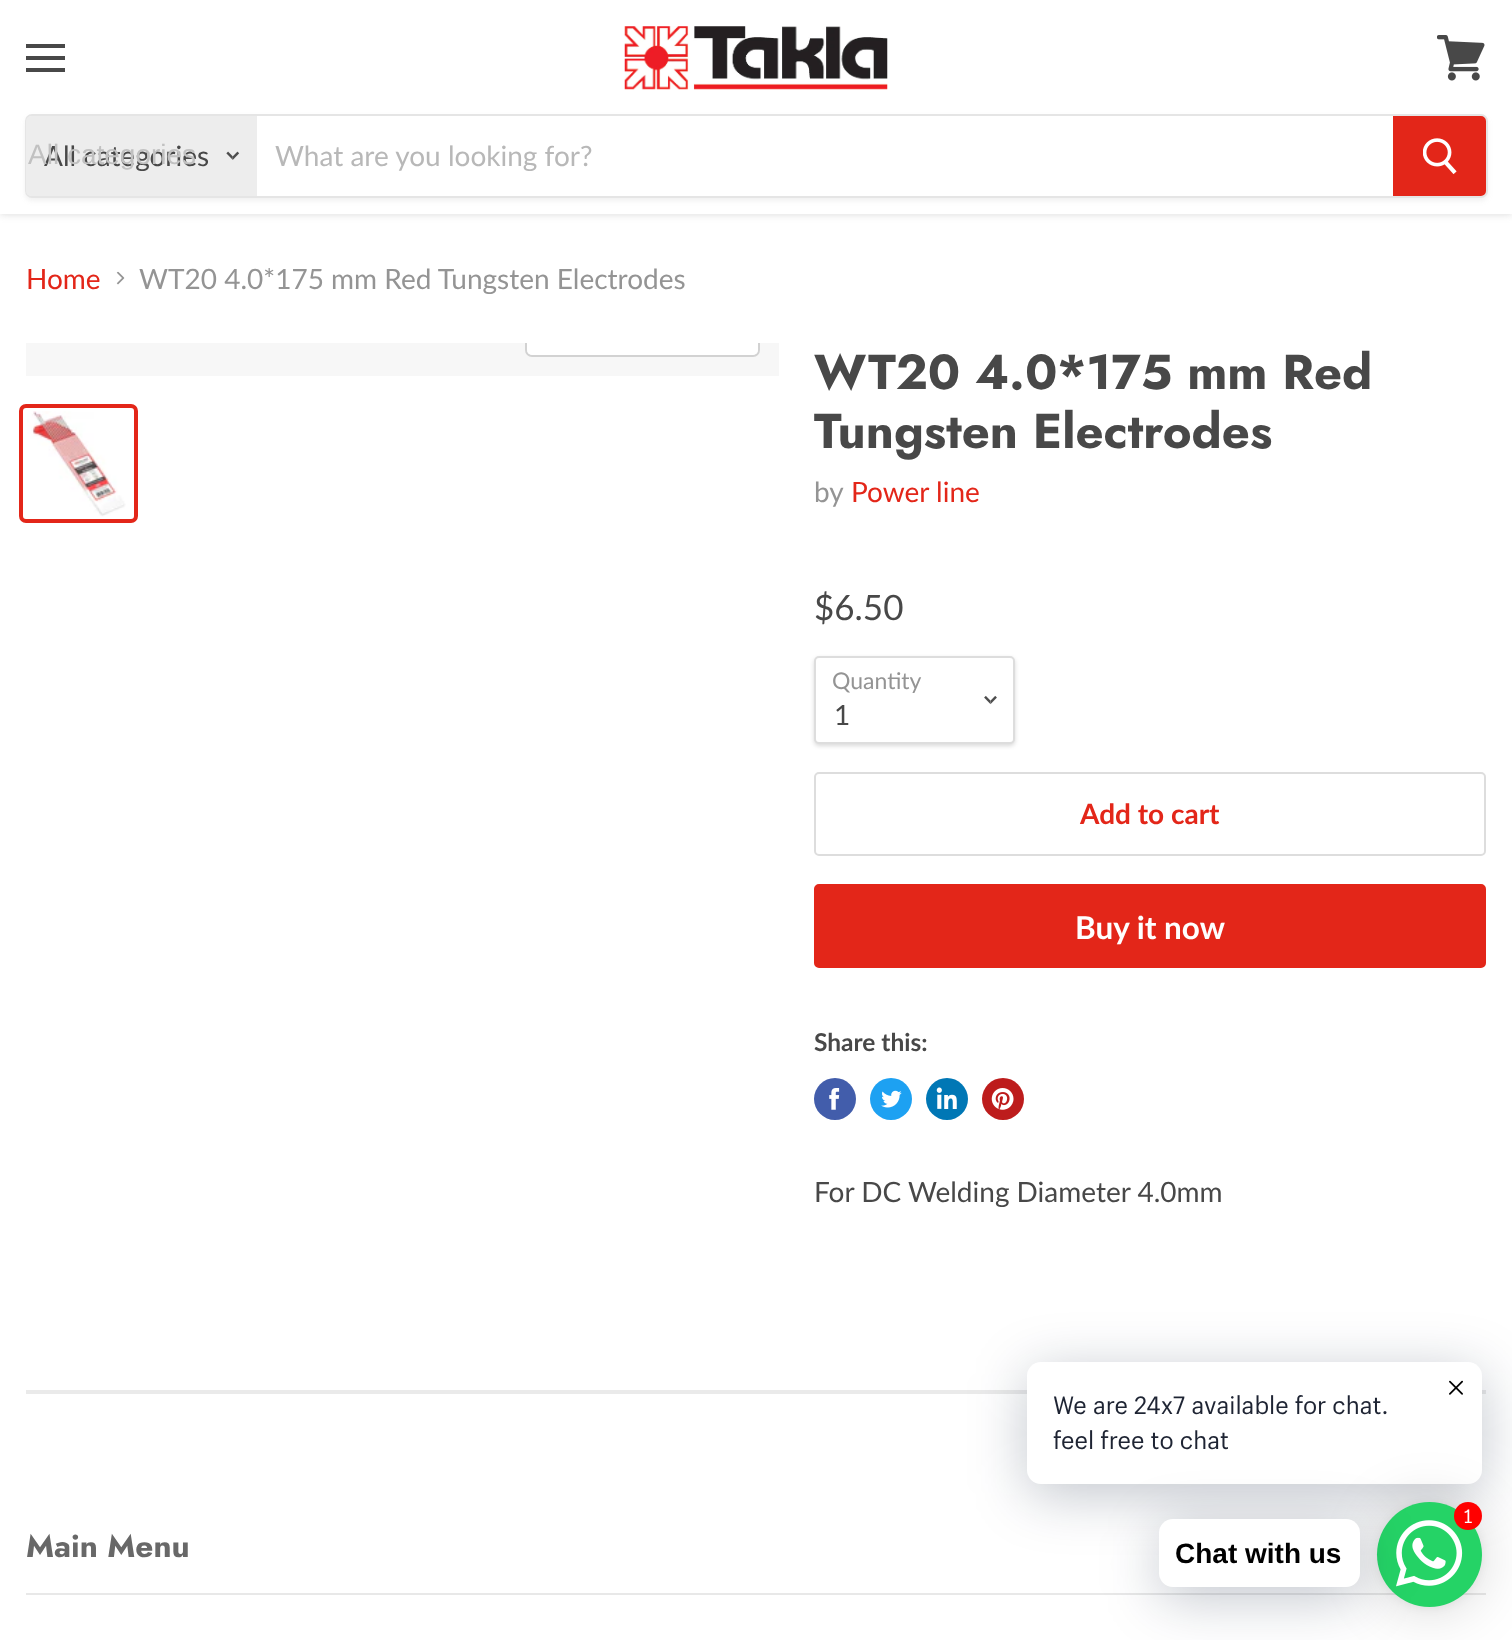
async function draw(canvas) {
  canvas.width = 1512;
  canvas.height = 1640;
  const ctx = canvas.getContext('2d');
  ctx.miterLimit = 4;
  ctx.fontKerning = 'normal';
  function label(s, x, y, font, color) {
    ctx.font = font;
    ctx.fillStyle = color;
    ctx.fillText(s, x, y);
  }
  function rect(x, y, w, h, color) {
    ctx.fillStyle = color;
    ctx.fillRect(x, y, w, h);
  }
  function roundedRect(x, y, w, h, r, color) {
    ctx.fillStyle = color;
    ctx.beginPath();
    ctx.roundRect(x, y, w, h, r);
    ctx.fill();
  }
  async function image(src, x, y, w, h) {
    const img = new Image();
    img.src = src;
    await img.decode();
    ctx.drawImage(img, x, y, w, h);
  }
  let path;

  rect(0, 0, 1512, 1640, '#fff');
  ctx.fillStyle = '#7f7f7f40';
  ctx.filter = 'blur(3.5px)';
  ctx.beginPath();
  ctx.rect(0, 2, 1512, 213);
  ctx.fill();
  ctx.filter = 'none';
  rect(0, 0, 1512, 214, '#fff');
  rect(26, 44, 39, 4, '#484848');
  rect(26, 56, 39, 4, '#484848');
  rect(26, 68, 39, 4, '#484848');
  await image('assets/img1.png', 1437, 35, 48, 46);
  await image('assets/img2.png', 624, 26, 264, 64);
  ctx.save();
  path = new Path2D('M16 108H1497V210H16ZM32 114H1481C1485 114 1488 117 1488 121V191C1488 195 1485 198 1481 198H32C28 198 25 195 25 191V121C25 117 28 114 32 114Z');
  ctx.clip(path, 'evenodd');
  ctx.fillStyle = '#7f7f7f1c';
  ctx.filter = 'blur(2.5px)';
  ctx.beginPath();
  ctx.roundRect(25, 117, 1463, 84, 7);
  ctx.fill();
  ctx.filter = 'none';
  ctx.restore();
  ctx.beginPath();
  ctx.roundRect(26, 115, 1461, 82, 6);
  ctx.strokeStyle = '#7f7f7f33';
  ctx.lineWidth = 2;
  ctx.stroke();
  ctx.fillStyle = '#ededed';
  ctx.beginPath();
  ctx.roundRect(26, 116, 231, 80, [5, 0, 0, 5]);
  ctx.fill();
  label('All categories', 44, 166, '28px Lato', '#484848');
  label('All categories', 28, 164, '28px Liberation Sans', '#c1c1c1');
  await image('assets/img3.png', 226, 151, 14, 9);
  label('What are you looking for?', 275, 166, '28px Lato', '#b8b8b8');
  ctx.fillStyle = '#e32619';
  ctx.beginPath();
  ctx.roundRect(1394, 117, 91, 78, [0, 4, 4, 0]);
  ctx.fill();
  ctx.strokeStyle = '#e32619';
  ctx.stroke();
  await image('assets/img4.png', 1423, 138, 34, 37);
  label('Home', 26, 289, '28px Lato', '#e32619');
  await image('assets/img5.png', 116, 271, 9, 14);
  label('WT20 4.0*175 mm Red Tungsten Electrodes', 139, 289, '28px Lato', '#949494');
  rect(26, 343, 753, 33, '#f7f7f7');
  ctx.save();
  ctx.beginPath();
  ctx.rect(26, 343, 753, 33);
  ctx.clip();
  ctx.beginPath();
  ctx.roundRect(526, 306, 233, 50, 6);
  ctx.strokeStyle = '#d2d2d2';
  ctx.stroke();
  ctx.restore();
  ctx.fillStyle = '#ffffffe6';
  ctx.beginPath();
  ctx.roundRect(527, 343, 231, 12, [0, 0, 5, 5]);
  ctx.fill();
  ctx.beginPath();
  ctx.roundRect(21, 406, 115, 115, 5);
  ctx.lineWidth = 4;
  ctx.stroke();
  await image('assets/img6.png', 27, 411, 99, 106);
  label('WT20 4.0*175 mm Red', 814, 389, 'bold 49px Jost', '#484848');
  label('Tungsten Electrodes', 814, 448, 'bold 49px Jost', '#484848');
  label('by', 814, 502, '28px Lato', '#949494');
  label('Power line', 851, 502, '28px Lato', '#e32619');
  label('$6.50', 814, 620, '35px Lato', '#484848');
  ctx.fillStyle = '#00000026';
  ctx.filter = 'blur(2px)';
  ctx.beginPath();
  ctx.roundRect(814, 658, 201, 88, 5);
  ctx.fill();
  ctx.filter = 'none';
  ctx.fillStyle = '#fff';
  ctx.beginPath();
  ctx.roundRect(815, 657, 199, 86, 4);
  ctx.fill();
  ctx.strokeStyle = '#ddd';
  ctx.lineWidth = 2;
  ctx.stroke();
  label('Quantity', 832, 689, '23px Lato', '#949494');
  await image('assets/img7.png', 984, 695, 13, 10);
  label('1', 834, 725, '28px Lato', '#484848');
  ctx.beginPath();
  ctx.roundRect(815, 773, 670, 82, 4);
  ctx.stroke();
  label('Add to cart', 1080, 824, 'bold 28px Lato', '#e32619');
  ctx.beginPath();
  ctx.roundRect(815, 885, 670, 82, 4);
  ctx.fill();
  ctx.strokeStyle = '#e32619';
  ctx.stroke();
  label('Buy it now', 1075, 939, 'bold 31.5px Lato', '#fff');
  label('Share this:', 814, 1051, 'bold 24.5px Lato', '#484848');
  ctx.fillStyle = '#425dab';
  ctx.beginPath();
  ctx.arc(835, 1099, 21, 0, 2 * Math.PI);
  ctx.fill();
  await image('assets/img8.png', 829, 1088, 11, 22);
  ctx.fillStyle = '#1da1f2';
  ctx.beginPath();
  ctx.arc(891, 1099, 21, 0, 2 * Math.PI);
  ctx.fill();
  await image('assets/img9.png', 881, 1090, 21, 18);
  ctx.fillStyle = '#0077b5';
  ctx.beginPath();
  ctx.arc(947, 1099, 21, 0, 2 * Math.PI);
  ctx.fill();
  await image('assets/img10.png', 936, 1087, 21, 22);
  ctx.fillStyle = '#bd1c1c';
  ctx.beginPath();
  ctx.arc(1003, 1099, 21, 0, 2 * Math.PI);
  ctx.fill();
  await image('assets/img11.png', 991, 1088, 23, 22);
  label('For DC Welding Diameter 4.0mm', 814, 1202, '28px Lato', '#484848');
  rect(26, 1390, 1460, 4, '#7f7f7f29');
  rect(26, 1593, 1460, 2, '#e8e8e8');
  label('Main Menu', 26, 1557, 'bold 31.5px Jost', '#686868');
  ctx.fillStyle = '#00122e3d';
  ctx.filter = 'blur(28px)';
  ctx.beginPath();
  ctx.roundRect(1027, 1372, 455, 123, 14);
  ctx.fill();
  ctx.filter = 'none';
  roundedRect(1027, 1362, 455, 122, 14, '#fff');
  await image('assets/img12.png', 1449, 1380, 14, 15);
  label('We are 24x7 available for chat.', 1053, 1414, '24.5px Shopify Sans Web', '#1e2433');
  label('feel free to chat', 1053, 1449, '24.5px Shopify Sans Web', '#1e2433');
  ctx.fillStyle = '#00000029';
  ctx.filter = 'blur(28px)';
  ctx.beginPath();
  ctx.roundRect(1377, 1505, 105, 105, 52.5);
  ctx.fill();
  ctx.filter = 'none';
  ctx.fillStyle = '#0000000f';
  ctx.filter = 'blur(5px)';
  ctx.beginPath();
  ctx.roundRect(1377, 1503, 105, 105, 52.5);
  ctx.fill();
  ctx.filter = 'none';
  ctx.fillStyle = '#25d366';
  ctx.beginPath();
  ctx.arc(1429.5, 1554.5, 52.5, 0, 2 * Math.PI);
  ctx.fill();
  ctx.fillStyle = '#00122e3d';
  ctx.filter = 'blur(28px)';
  ctx.beginPath();
  ctx.roundRect(1159, 1530, 201, 68, 14);
  ctx.fill();
  ctx.filter = 'none';
  await image('assets/img13.png', 1396, 1520, 67, 67);
  ctx.fillStyle = '#f00';
  ctx.beginPath();
  ctx.arc(1468, 1516, 14, 0, 2 * Math.PI);
  ctx.fill();
  label('1', 1464, 1523, '19px Shopify Sans Web', '#fff');
  roundedRect(1159, 1519, 201, 68, 14, '#fff');
  label('Chat with us', 1175, 1563, 'bold 28px Liberation Sans', '#000');
}

draw(document.querySelector('canvas'));
